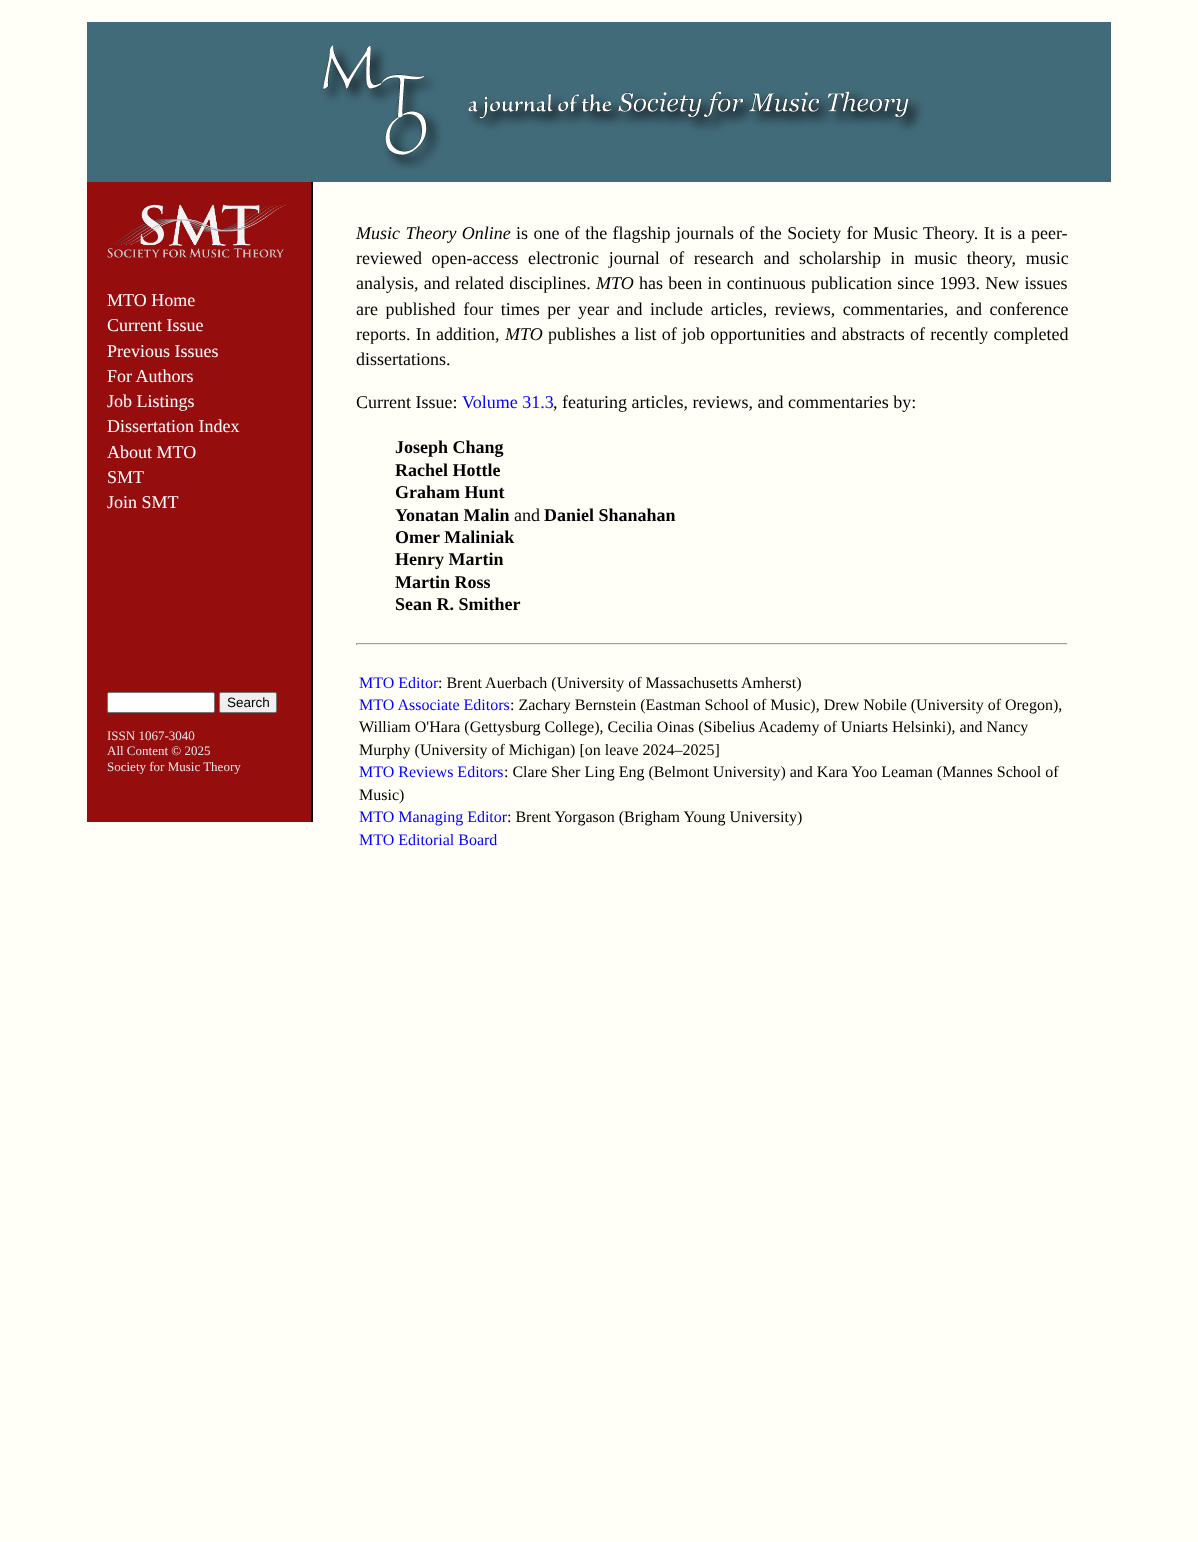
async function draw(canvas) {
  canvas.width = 1198;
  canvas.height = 1542;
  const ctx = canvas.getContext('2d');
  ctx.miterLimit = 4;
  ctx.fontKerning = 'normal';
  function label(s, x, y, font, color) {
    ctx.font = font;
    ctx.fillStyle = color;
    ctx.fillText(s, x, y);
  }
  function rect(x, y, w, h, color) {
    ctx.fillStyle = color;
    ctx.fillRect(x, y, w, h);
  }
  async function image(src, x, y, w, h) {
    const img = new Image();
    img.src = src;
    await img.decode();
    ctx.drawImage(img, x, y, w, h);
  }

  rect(0, 0, 1198, 1542, '#fffff8');
  await image('assets/img1.png', 87, 22, 1024, 160);
  rect(87, 182, 224, 640, '#960d0d');
  rect(311, 182, 2, 640, '#000');
  ctx.wordSpacing = '0.9px';
  label('Music Theory Online', 356, 239, 'italic 18px Liberation Serif', '#000');
  label('is one of the flagship journals of the Society for Music Theory. It is a peer-', 516, 239, '18px Liberation Serif', '#000');
  ctx.wordSpacing = '5.1px';
  label('reviewed open-access electronic journal of research and scholarship in music theory, music', 356, 264, '18px Liberation Serif', '#000');
  ctx.wordSpacing = '0.75px';
  label('analysis, and related disciplines.', 356, 289, '18px Liberation Serif', '#000');
  ctx.wordSpacing = '0px';
  label('MTO', 596, 289, 'italic 18px Liberation Serif', '#000');
  ctx.wordSpacing = '0.75px';
  label('has been in continuous publication since 1993. New issues', 639, 289, '18px Liberation Serif', '#000');
  ctx.wordSpacing = '3.1px';
  label('are published four times per year and include articles, reviews, commentaries, and conference', 356, 315, '18px Liberation Serif', '#000');
  ctx.wordSpacing = '0.75px';
  label('reports. In addition,', 356, 340, '18px Liberation Serif', '#000');
  ctx.wordSpacing = '0px';
  label('MTO', 505, 340, 'italic 18px Liberation Serif', '#000');
  ctx.wordSpacing = '0.75px';
  label('publishes a list of job opportunities and abstracts of recently completed', 548, 340, '18px Liberation Serif', '#000');
  ctx.wordSpacing = '0px';
  label('dissertations.', 356, 365, '18px Liberation Serif', '#000');
  label('Current Issue:', 356, 408, '18px Liberation Serif', '#000');
  label('Volume 31.3', 462, 408, '18px Liberation Serif', '#00f');
  label(', featuring articles, reviews, and commentaries by:', 553, 408, '18px Liberation Serif', '#000');
  label('Joseph Chang', 395, 453, 'bold 18px Liberation Serif', '#000');
  label('Rachel Hottle', 395, 476, 'bold 18px Liberation Serif', '#000');
  label('Graham Hunt', 395, 498, 'bold 18px Liberation Serif', '#000');
  label('Yonatan Malin', 395, 521, 'bold 18px Liberation Serif', '#000');
  label('and', 514, 521, '18px Liberation Serif', '#000');
  label('Daniel Shanahan', 544, 521, 'bold 18px Liberation Serif', '#000');
  label('Omer Maliniak', 395, 543, 'bold 18px Liberation Serif', '#000');
  label('Henry Martin', 395, 565, 'bold 18px Liberation Serif', '#000');
  label('Martin Ross', 395, 588, 'bold 18px Liberation Serif', '#000');
  label('Sean R. Smither', 395, 610, 'bold 18px Liberation Serif', '#000');
  rect(356, 643, 712, 1, '#9f9f9f');
  rect(1067, 643, 1, 2, '#eee');
  rect(356, 644, 712, 1, '#eee');
  rect(356, 643, 1, 2, '#9f9f9f');
  label('MTO Editor', 359, 688, '16px Liberation Serif', '#00f');
  label(': Brent Auerbach (University of Massachusetts Amherst)', 438, 688, '16px Liberation Serif', '#000');
  label('MTO Associate Editors', 359, 710, '16px Liberation Serif', '#00f');
  label(': Zachary Bernstein (Eastman School of Music), Drew Nobile (University of Oregon),', 510, 710, '16px Liberation Serif', '#000');
  label('William O\'Hara (Gettysburg College), Cecilia Oinas (Sibelius Academy of Uniarts Helsinki), and Nancy', 359, 732, '16px Liberation Serif', '#000');
  label('Murphy (University of Michigan) [on leave 2024–2025]', 359, 755, '16px Liberation Serif', '#000');
  label('MTO Reviews Editors', 359, 777, '16px Liberation Serif', '#00f');
  label(': Clare Sher Ling Eng (Belmont University) and Kara Yoo Leaman (Mannes School of', 504, 777, '16px Liberation Serif', '#000');
  label('Music)', 359, 800, '16px Liberation Serif', '#000');
  label('MTO Managing Editor', 359, 822, '16px Liberation Serif', '#00f');
  label(': Brent Yorgason (Brigham Young University)', 507, 822, '16px Liberation Serif', '#000');
  label('MTO Editorial Board', 359, 845, '16px Liberation Serif', '#00f');
  await image('assets/img2.png', 107, 204, 179, 54);
  label('MTO Home', 107, 306, '18px Liberation Serif', '#fff');
  label('Current Issue', 107, 331, '18px Liberation Serif', '#fff');
  label('Previous Issues', 107, 357, '18px Liberation Serif', '#fff');
  label('For Authors', 107, 382, '18px Liberation Serif', '#fff');
  label('Job Listings', 107, 407, '18px Liberation Serif', '#fff');
  label('Dissertation Index', 107, 432, '18px Liberation Serif', '#fff');
  label('About MTO', 107, 458, '18px Liberation Serif', '#fff');
  label('SMT', 107, 483, '18px Liberation Serif', '#fff');
  label('Join SMT', 107, 508, '18px Liberation Serif', '#fff');
  ctx.beginPath();
  ctx.roundRect(107.5, 692.5, 107, 20, 1.5);
  ctx.fill();
  ctx.strokeStyle = '#767676';
  ctx.stroke();
  ctx.fillStyle = '#efefef';
  ctx.beginPath();
  ctx.roundRect(219.5, 692.5, 57, 20, 1.5);
  ctx.fill();
  ctx.stroke();
  label('Search', 227, 707, '13.5px Liberation Sans', '#000');
  label('ISSN 1067-3040', 107, 740, '13px Liberation Serif', '#e6e6e6');
  label('All Content © 2025', 107, 755, '13px Liberation Serif', '#e6e6e6');
  label('Society for Music Theory', 107, 771, '13px Liberation Serif', '#e6e6e6');
}

draw(document.querySelector('canvas'));
